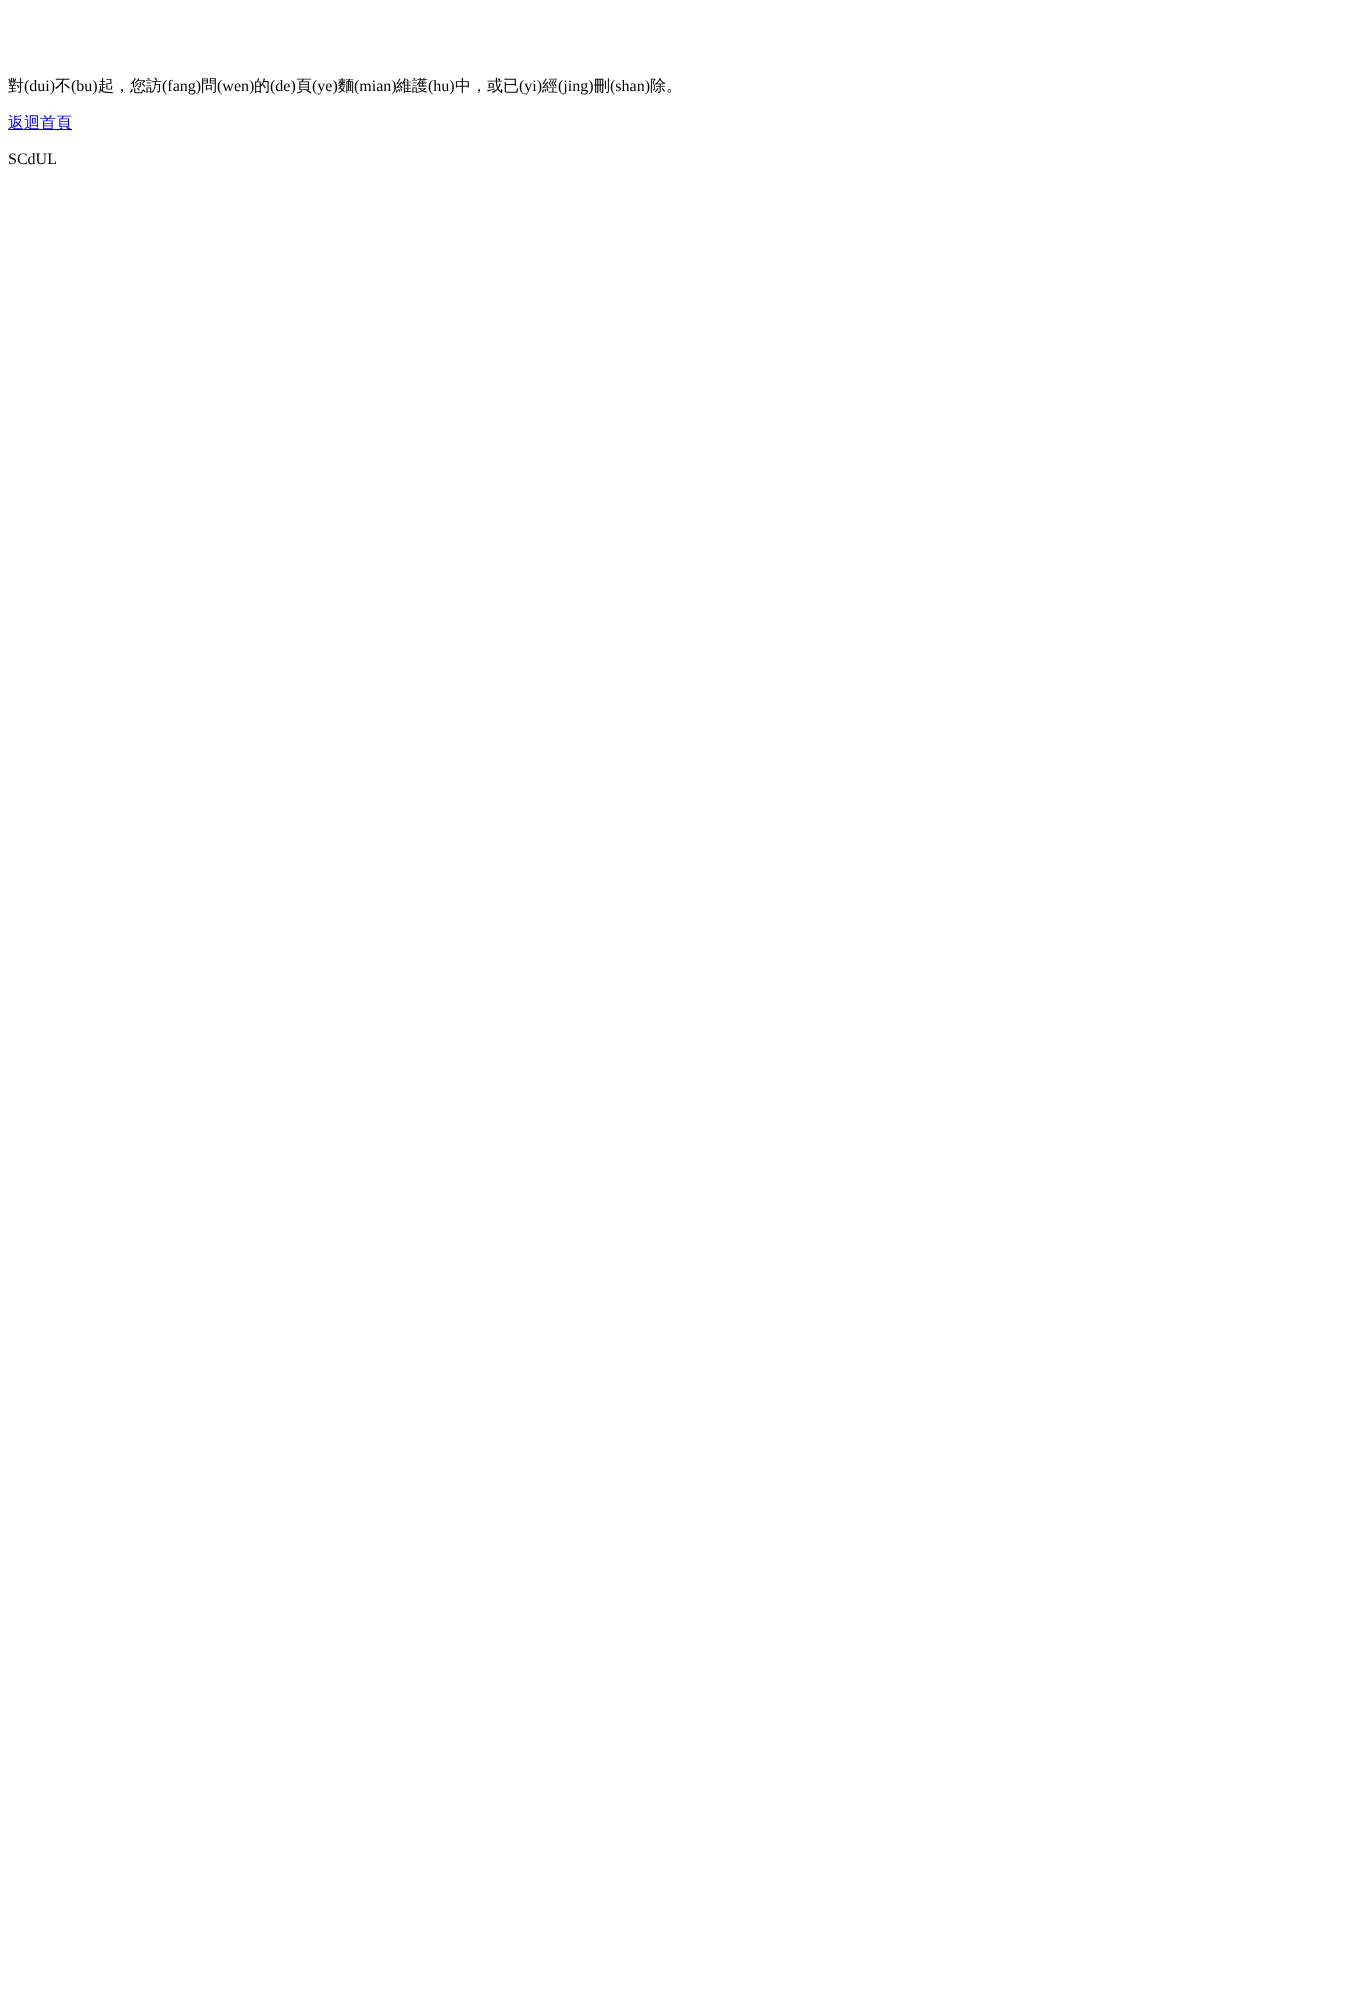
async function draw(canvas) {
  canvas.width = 1362;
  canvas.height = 2007;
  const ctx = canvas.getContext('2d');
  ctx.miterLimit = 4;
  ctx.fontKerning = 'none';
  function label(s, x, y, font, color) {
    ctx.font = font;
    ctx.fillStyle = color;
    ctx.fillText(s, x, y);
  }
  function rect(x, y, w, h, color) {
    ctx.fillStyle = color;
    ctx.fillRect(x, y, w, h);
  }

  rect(0, 0, 1362, 2007, '#fff');
  label('對', 8, 91, '500 16px WenQuanYi Zen Hei', '#000');
  label('(dui)', 24, 91, '16px Liberation Serif', '#000');
  label('不', 55, 91, '500 16px WenQuanYi Zen Hei', '#000');
  label('(bu)', 71, 91, '16px Liberation Serif', '#000');
  label('起，您訪', 98, 91, '500 16px WenQuanYi Zen Hei', '#000');
  label('(fang)', 162, 91, '16px Liberation Serif', '#000');
  label('問', 201, 91, '500 16px WenQuanYi Zen Hei', '#000');
  label('(wen)', 217, 91, '16px Liberation Serif', '#000');
  label('的', 254, 91, '500 16px WenQuanYi Zen Hei', '#000');
  label('(de)', 270, 91, '16px Liberation Serif', '#000');
  label('頁', 296, 91, '500 16px WenQuanYi Zen Hei', '#000');
  label('(ye)', 312, 91, '16px Liberation Serif', '#000');
  label('麵', 338, 91, '500 16px WenQuanYi Zen Hei', '#000');
  label('(mian)', 354, 91, '16px Liberation Serif', '#000');
  label('維護', 396, 91, '500 16px WenQuanYi Zen Hei', '#000');
  label('(hu)', 428, 91, '16px Liberation Serif', '#000');
  label('中，或已', 455, 91, '500 16px WenQuanYi Zen Hei', '#000');
  label('(yi)', 519, 91, '16px Liberation Serif', '#000');
  label('經', 542, 91, '500 16px WenQuanYi Zen Hei', '#000');
  label('(jing)', 558, 91, '16px Liberation Serif', '#000');
  label('刪', 594, 91, '500 16px WenQuanYi Zen Hei', '#000');
  label('(shan)', 610, 91, '16px Liberation Serif', '#000');
  label('除。', 650, 91, '500 16px WenQuanYi Zen Hei', '#000');
  rect(8, 129, 64, 1, '#00e');
  label('返迴首頁', 8, 128, '500 16px WenQuanYi Zen Hei', '#00e');
  label('SCdUL', 8, 164, '16px Liberation Serif', '#000');
}

draw(document.querySelector('canvas'));
